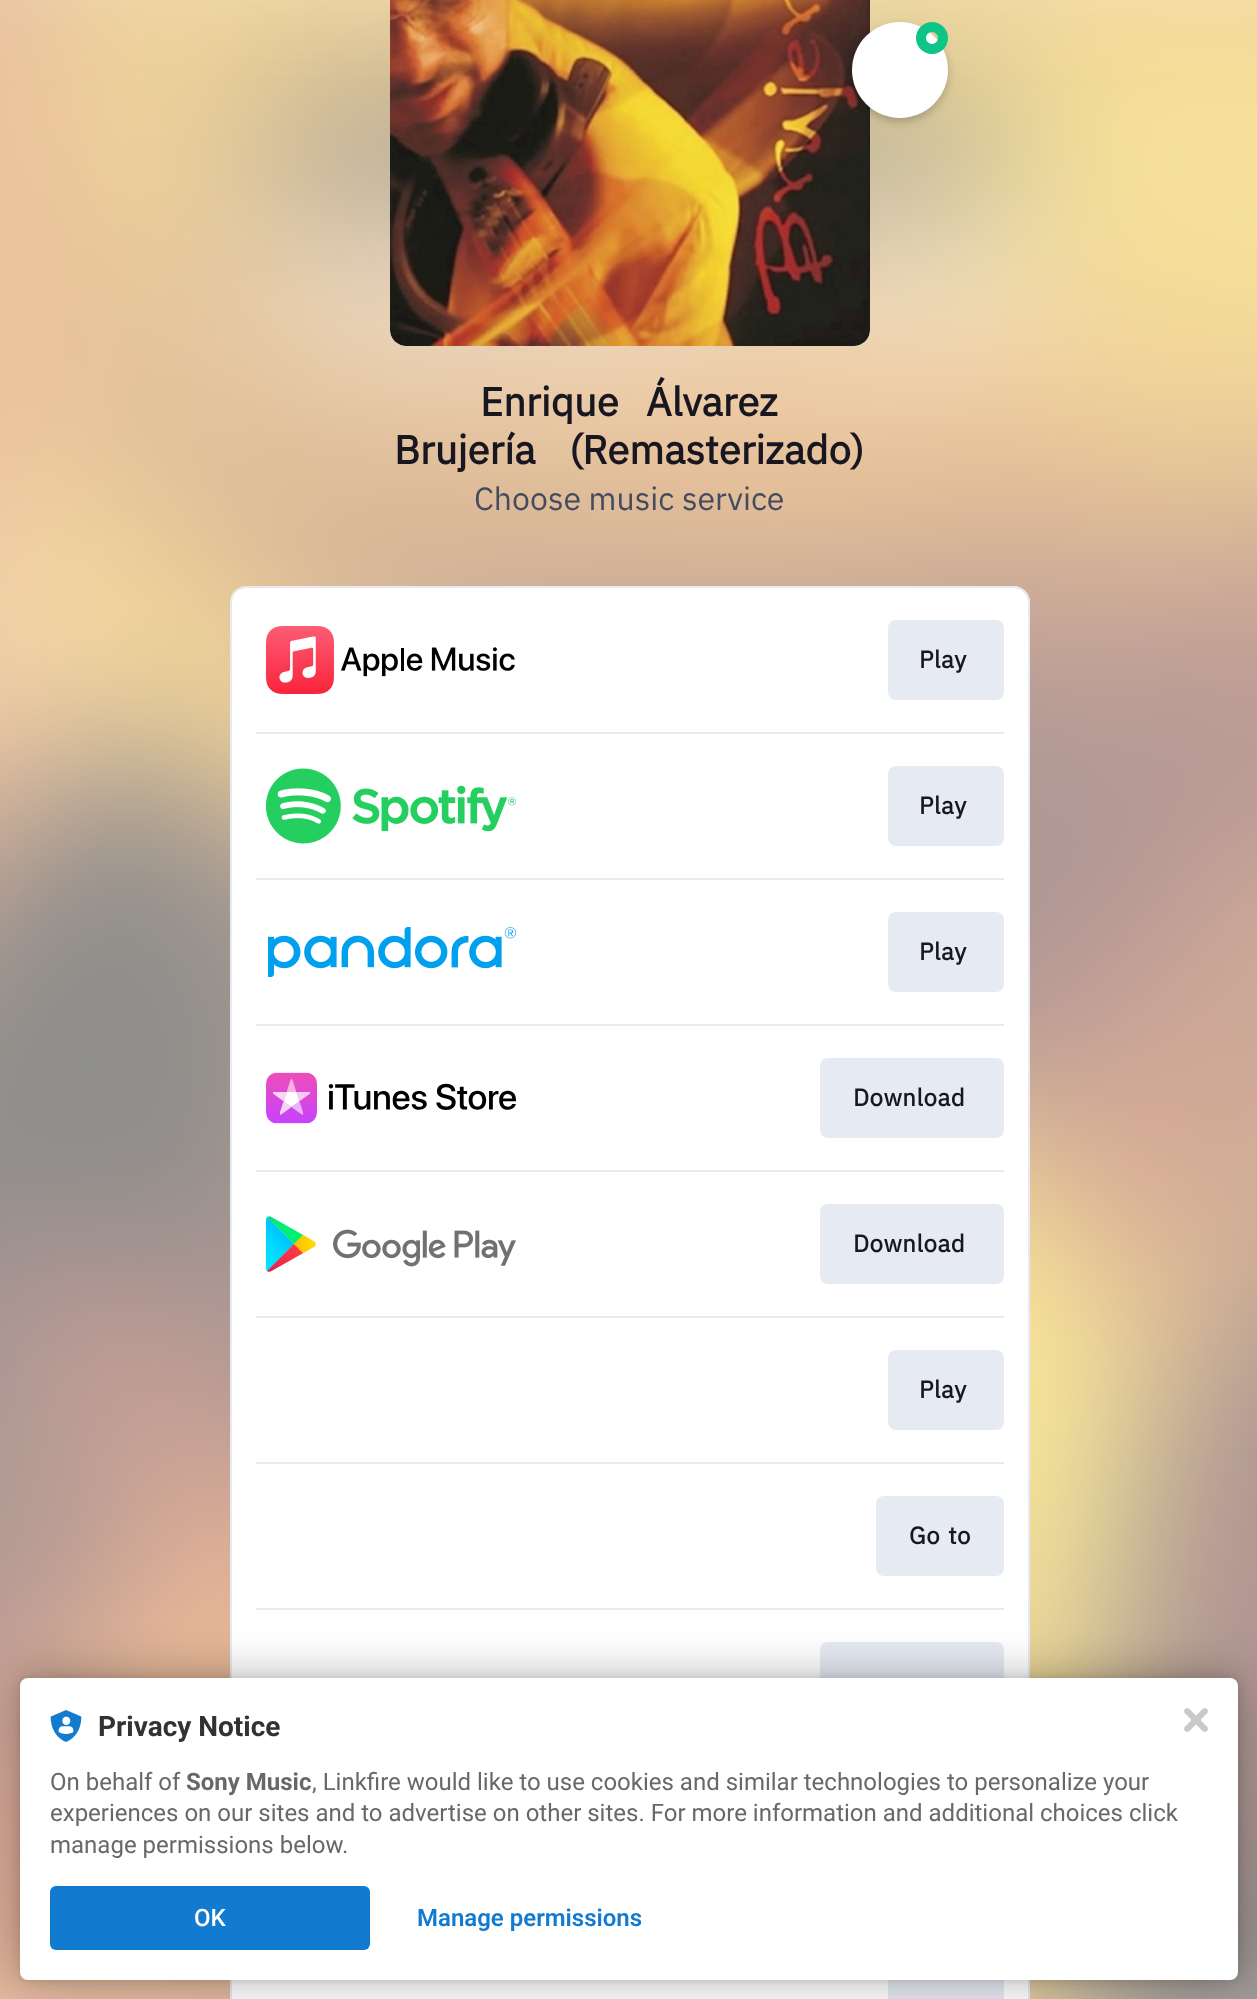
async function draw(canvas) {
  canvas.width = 1257;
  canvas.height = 1999;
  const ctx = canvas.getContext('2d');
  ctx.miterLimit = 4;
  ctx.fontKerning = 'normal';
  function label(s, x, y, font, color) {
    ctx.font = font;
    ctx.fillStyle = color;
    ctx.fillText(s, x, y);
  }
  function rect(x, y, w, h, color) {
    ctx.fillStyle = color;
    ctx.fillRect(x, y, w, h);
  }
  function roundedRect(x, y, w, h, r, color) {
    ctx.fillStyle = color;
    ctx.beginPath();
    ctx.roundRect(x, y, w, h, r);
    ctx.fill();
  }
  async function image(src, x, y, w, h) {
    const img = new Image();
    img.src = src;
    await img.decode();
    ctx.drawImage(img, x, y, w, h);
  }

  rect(0, 0, 1257, 1999, '#fff');
  await image('assets/img1.png', 0, 0, 1257, 1999);
  await image('assets/img2.png', 390, 0, 480, 346);
  ctx.fillStyle = '#00000033';
  ctx.filter = 'blur(4px)';
  ctx.beginPath();
  ctx.roundRect(852, 26, 96, 96, 48);
  ctx.fill();
  ctx.filter = 'none';
  ctx.fillStyle = '#fff';
  ctx.beginPath();
  ctx.arc(900, 70, 48, 0, 2 * Math.PI);
  ctx.fill();
  ctx.beginPath();
  ctx.arc(932, 38, 11, 0, 2 * Math.PI);
  ctx.strokeStyle = '#0dc587';
  ctx.lineWidth = 10;
  ctx.stroke();
  ctx.wordSpacing = '18px';
  label('Enrique Álvarez', 480, 416, 'bold 40px IBM Plex Sans', '#181721');
  ctx.wordSpacing = '24px';
  label('Brujería (Remasterizado)', 394, 464, 'bold 40px IBM Plex Sans', '#181721');
  ctx.wordSpacing = '0px';
  label('Choose music service', 474, 510, '32px IBM Plex Sans', '#454b5f');
  ctx.beginPath();
  ctx.roundRect(231, 587, 798, 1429, 15);
  ctx.strokeStyle = '#e6eaf2';
  ctx.lineWidth = 2;
  ctx.stroke();
  roundedRect(232, 588, 796, 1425, 14, '#fff');
  await image('assets/img3.png', 266, 626, 249, 68);
  roundedRect(888, 620, 116, 80, 8, '#e6eaf2');
  ctx.letterSpacing = '0.5px';
  label('Play', 919, 668, 'bold 24px IBM Plex Sans', '#181721');
  rect(256, 732, 748, 2, '#e6eaf2');
  await image('assets/img4.png', 266, 768, 250, 76);
  roundedRect(888, 766, 116, 80, 8, '#e6eaf2');
  label('Play', 919, 814, 'bold 24px IBM Plex Sans', '#181721');
  rect(256, 878, 748, 2, '#e6eaf2');
  await image('assets/img5.png', 268, 927, 248, 50);
  roundedRect(888, 912, 116, 80, 8, '#e6eaf2');
  label('Play', 919, 960, 'bold 24px IBM Plex Sans', '#181721');
  rect(256, 1024, 748, 2, '#e6eaf2');
  await image('assets/img6.png', 266, 1072, 250, 52);
  roundedRect(820, 1058, 184, 80, 8, '#e6eaf2');
  label('Download', 853, 1106, 'bold 24px IBM Plex Sans', '#181721');
  rect(256, 1170, 748, 2, '#e6eaf2');
  await image('assets/img7.png', 266, 1216, 250, 56);
  roundedRect(820, 1204, 184, 80, 8, '#e6eaf2');
  label('Download', 853, 1252, 'bold 24px IBM Plex Sans', '#181721');
  rect(256, 1316, 748, 2, '#e6eaf2');
  roundedRect(888, 1350, 116, 80, 8, '#e6eaf2');
  label('Play', 919, 1398, 'bold 24px IBM Plex Sans', '#181721');
  rect(256, 1462, 748, 2, '#e6eaf2');
  roundedRect(876, 1496, 128, 80, 8, '#e6eaf2');
  ctx.wordSpacing = '2px';
  label('Go to', 909, 1544, 'bold 24px IBM Plex Sans', '#181721');
  rect(256, 1608, 748, 2, '#e6eaf2');
  roundedRect(820, 1642, 184, 80, 8, '#e6eaf2');
  rect(888, 1980, 116, 19, '#e6eaf2');
  ctx.fillStyle = '#0000001f';
  ctx.filter = 'blur(4px)';
  ctx.beginPath();
  ctx.roundRect(20, 1678, 1218, 302, 8);
  ctx.fill();
  ctx.filter = 'none';
  ctx.fillStyle = '#0000004d';
  ctx.filter = 'blur(24px)';
  ctx.beginPath();
  ctx.roundRect(20, 1678, 1218, 302, 8);
  ctx.fill();
  ctx.filter = 'none';
  roundedRect(20, 1678, 1218, 302, 8, '#fff');
  await image('assets/img8.png', 50, 1710, 32, 32);
  ctx.letterSpacing = '0px';
  ctx.wordSpacing = '0px';
  label('Privacy Notice', 98, 1736, 'bold 28px Roboto', '#323232');
  label('On behalf of', 50, 1790, '24px Roboto', '#686868');
  label('Sony Music', 186, 1790, 'bold 24px Roboto', '#686868');
  label(', Linkfire would like to use cookies and similar technologies to personalize your', 312, 1790, '24px Roboto', '#686868');
  label('experiences on our sites and to advertise on other sites. For more information and additional choices click', 50, 1821, '24px Roboto', '#686868');
  label('manage permissions below.', 50, 1853, '24px Roboto', '#686868');
  roundedRect(50, 1886, 320, 64, 6, '#137bcf');
  label('OK', 194, 1926, '500 24px Roboto', '#fff');
  label('Manage permissions', 417, 1926, '600 24px Roboto', '#137bcf');
  await image('assets/img9.png', 1184, 1708, 24, 24);
}

draw(document.querySelector('canvas'));
